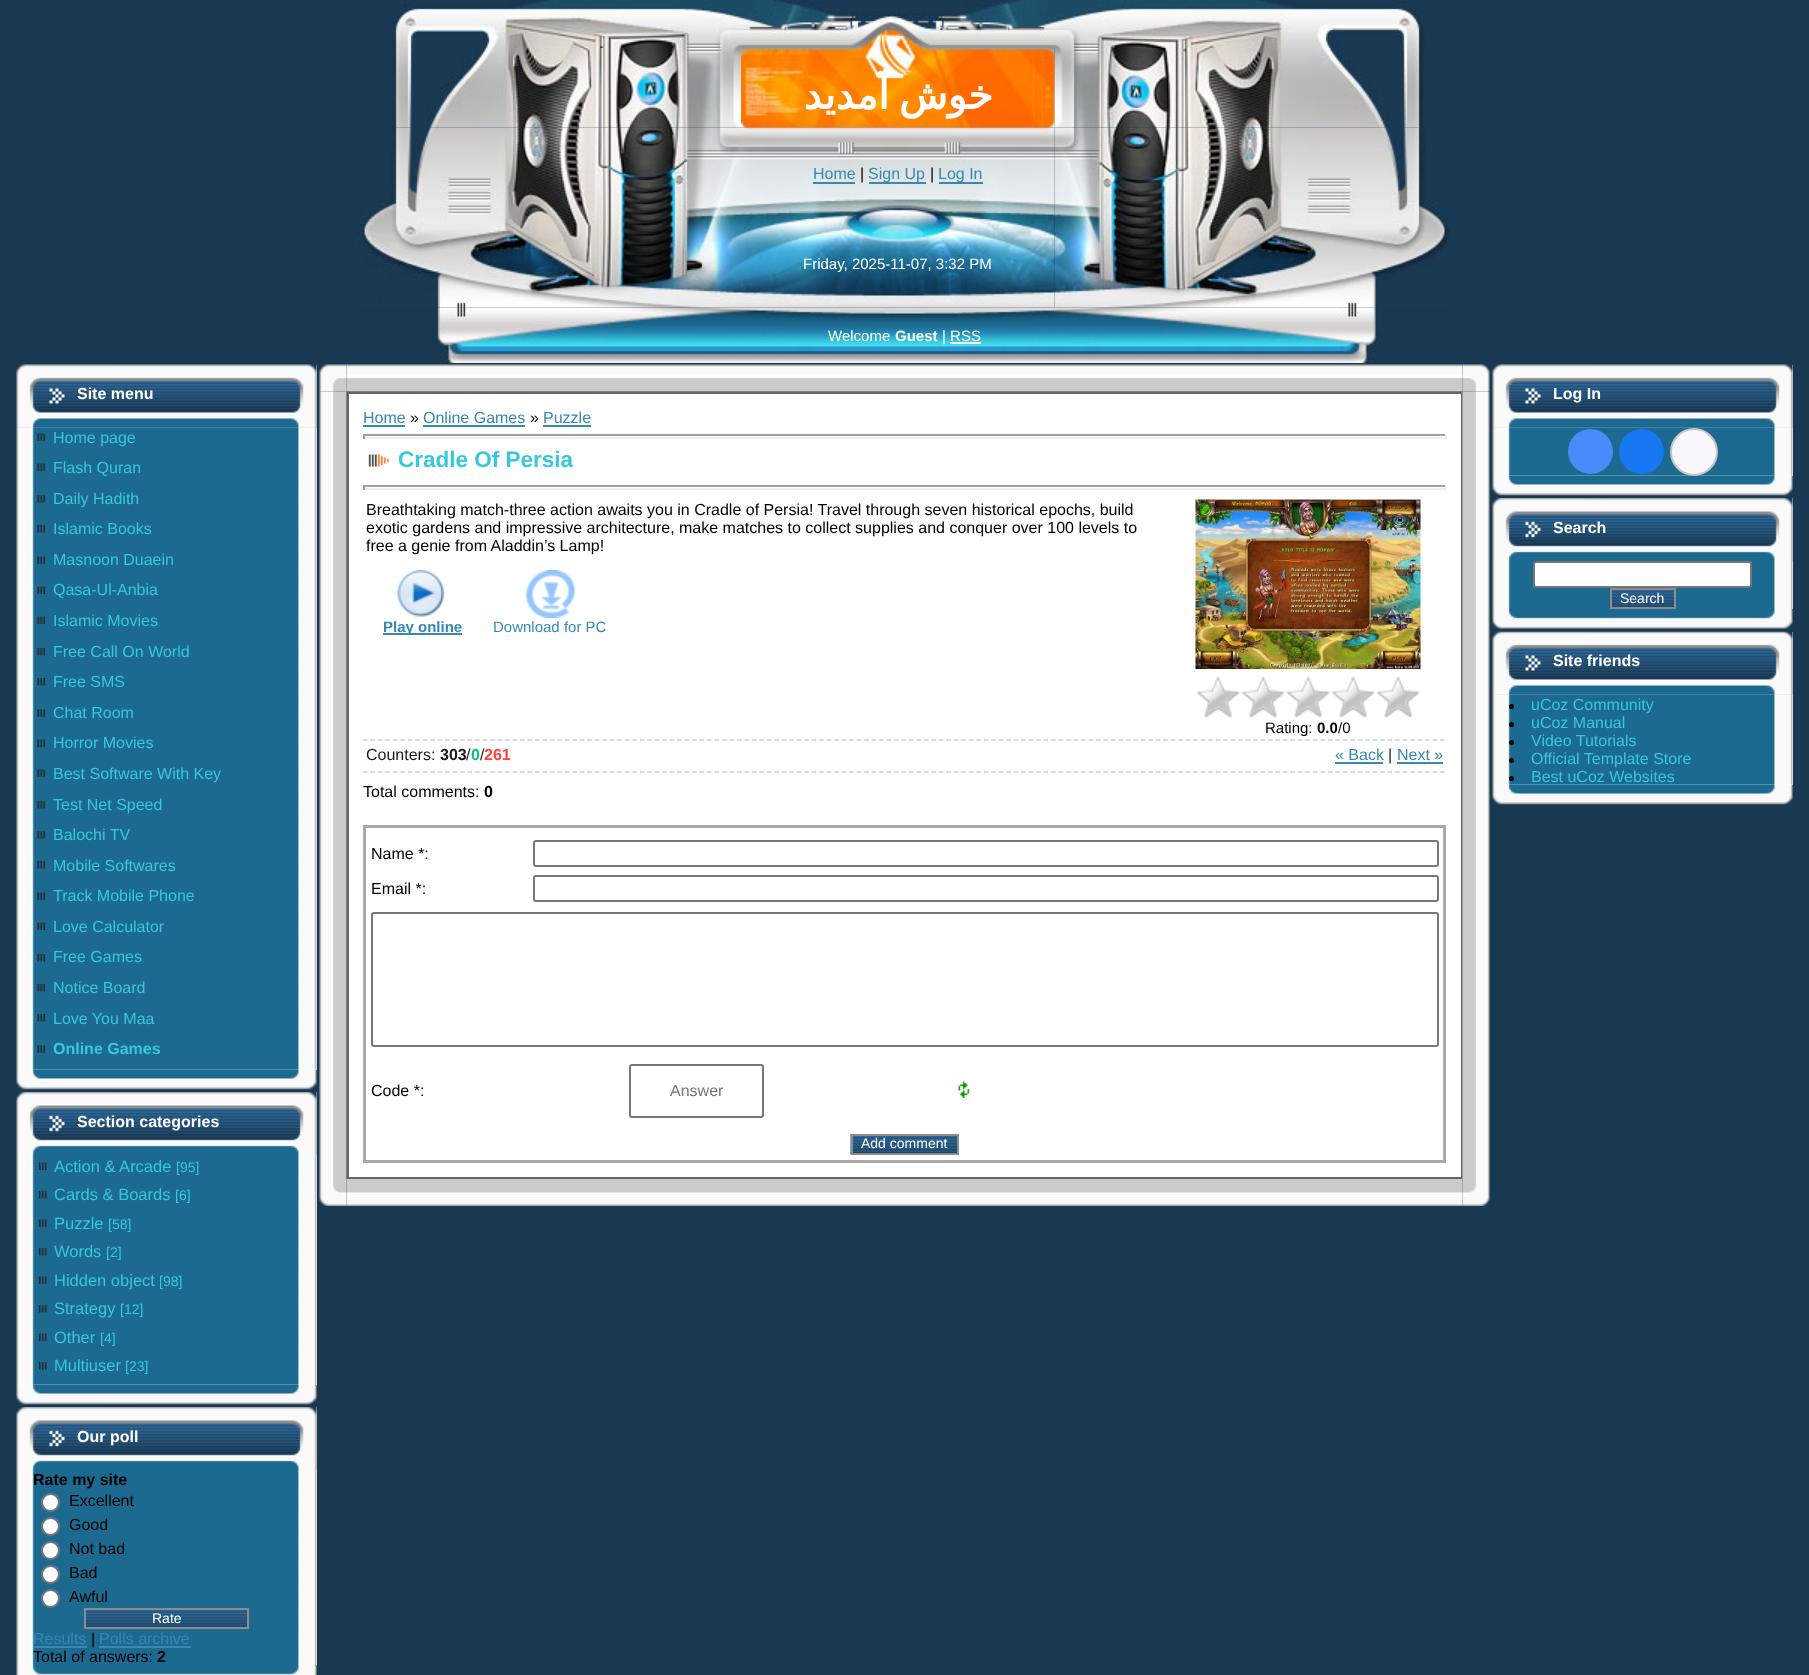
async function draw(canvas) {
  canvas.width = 1809;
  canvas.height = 1675;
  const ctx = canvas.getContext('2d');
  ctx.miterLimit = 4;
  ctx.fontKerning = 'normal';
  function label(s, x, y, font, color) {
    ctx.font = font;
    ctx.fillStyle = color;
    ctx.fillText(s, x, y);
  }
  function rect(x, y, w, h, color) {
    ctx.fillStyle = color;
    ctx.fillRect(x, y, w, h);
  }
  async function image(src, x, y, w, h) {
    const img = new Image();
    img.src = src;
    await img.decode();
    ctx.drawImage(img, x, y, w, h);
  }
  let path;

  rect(0, 0, 1809, 1675, '#193953');
  await image('assets/img1.png', 390, 0, 1035, 48);
  await image('assets/img2.png', 390, 48, 351, 80);
  await image('assets/img3.png', 741, 48, 314, 80);
  ctx.wordSpacing = '-3px';
  ctx.direction = 'rtl';
  label('خوش آمدید', 993, 109, 'bold 40px DejaVu Sans', '#fff');
  await image('assets/img6.png', 741, 127, 314, 92);
  await image('assets/img4.png', 1054, 48, 370, 80);
  await image('assets/img5.png', 366, 127, 375, 92);
  ctx.wordSpacing = '0px';
  ctx.direction = 'ltr';
  label('Home', 813, 179, '16px Liberation Sans', '#3689b3');
  rect(813, 182, 42, 2, '#3689b3');
  label('|', 860, 179, '16px Liberation Sans', '#000');
  rect(869, 182, 57, 2, '#3689b3');
  label('Sign Up', 868, 179, '16px Liberation Sans', '#3689b3');
  label('|', 930, 179, '16px Liberation Sans', '#000');
  rect(939, 182, 44, 2, '#3689b3');
  label('Log In', 938, 179, '16px Liberation Sans', '#3689b3');
  await image('assets/img7.png', 1054, 127, 385, 92);
  await image('assets/img9.png', 741, 219, 314, 89);
  await image('assets/img11.png', 437, 307, 949, 56);
  await image('assets/img8.png', 354, 219, 387, 89);
  label('Friday, 2025-11-07, 3:32 PM', 803, 269, '15px Liberation Sans', '#fff');
  await image('assets/img10.png', 1054, 219, 396, 89);
  label('Welcome', 828, 341, '15px Liberation Sans', '#fff');
  label('Guest', 895, 341, 'bold 15px Liberation Sans', '#fff');
  label('| RSS', 942, 341, '15px Liberation Sans', '#fff');
  rect(950, 342, 31, 2, '#fff');
  rect(17, 365, 300, 63, '#b8d1df');
  await image('assets/img12.png', 16, 364, 301, 64);
  label('Site menu', 77, 399, 'bold 16px Liberation Sans', '#fff');
  rect(17, 428, 300, 642, '#fff');
  await image('assets/img13.png', 16, 427, 301, 643);
  await image('assets/img14.png', 37, 433, 8, 8);
  label('Home page', 53, 443, '16px Liberation Sans', '#36c8dd');
  await image('assets/img14.png', 37, 463, 8, 8);
  label('Flash Quran', 53, 473, '16px Liberation Sans', '#36c8dd');
  await image('assets/img15.png', 37, 495, 8, 8);
  label('Daily Hadith', 53, 504, '16px Liberation Sans', '#36c8dd');
  await image('assets/img15.png', 37, 525, 8, 8);
  label('Islamic Books', 53, 534, '16px Liberation Sans', '#36c8dd');
  await image('assets/img14.png', 37, 556, 8, 8);
  label('Masnoon Duaein', 53, 565, '16px Liberation Sans', '#36c8dd');
  await image('assets/img14.png', 37, 586, 8, 8);
  label('Qasa-Ul-Anbia', 53, 595, '16px Liberation Sans', '#36c8dd');
  await image('assets/img14.png', 37, 616, 8, 8);
  label('Islamic Movies', 53, 626, '16px Liberation Sans', '#36c8dd');
  await image('assets/img15.png', 37, 648, 8, 8);
  label('Free Call On World', 53, 657, '16px Liberation Sans', '#36c8dd');
  await image('assets/img15.png', 37, 678, 8, 8);
  label('Free SMS', 53, 687, '16px Liberation Sans', '#36c8dd');
  await image('assets/img14.png', 37, 709, 8, 8);
  label('Chat Room', 53, 718, '16px Liberation Sans', '#36c8dd');
  await image('assets/img14.png', 37, 739, 8, 8);
  label('Horror Movies', 53, 748, '16px Liberation Sans', '#36c8dd');
  await image('assets/img14.png', 37, 769, 8, 8);
  label('Best Software With Key', 53, 779, '16px Liberation Sans', '#36c8dd');
  await image('assets/img15.png', 37, 801, 8, 8);
  label('Test Net Speed', 53, 810, '16px Liberation Sans', '#36c8dd');
  await image('assets/img15.png', 37, 831, 8, 8);
  label('Balochi TV', 53, 840, '16px Liberation Sans', '#36c8dd');
  await image('assets/img15.png', 37, 861, 8, 8);
  label('Mobile Softwares', 53, 871, '16px Liberation Sans', '#36c8dd');
  await image('assets/img14.png', 37, 892, 8, 8);
  label('Track Mobile Phone', 53, 901, '16px Liberation Sans', '#36c8dd');
  await image('assets/img14.png', 37, 922, 8, 8);
  label('Love Calculator', 53, 932, '16px Liberation Sans', '#36c8dd');
  await image('assets/img15.png', 37, 954, 8, 8);
  label('Free Games', 53, 962, '16px Liberation Sans', '#36c8dd');
  await image('assets/img15.png', 37, 984, 8, 8);
  label('Notice Board', 53, 993, '16px Liberation Sans', '#36c8dd');
  await image('assets/img15.png', 37, 1014, 8, 8);
  label('Love You Maa', 53, 1024, '16px Liberation Sans', '#36c8dd');
  await image('assets/img14.png', 37, 1045, 8, 8);
  label('Online Games', 53, 1054, 'bold 16px Liberation Sans', '#36c8dd');
  await image('assets/img16.png', 16, 1069, 301, 21);
  rect(316, 1092, 1, 63, '#b8d1df');
  await image('assets/img17.png', 16, 1092, 301, 63);
  label('Section categories', 77, 1127, 'bold 16px Liberation Sans', '#fff');
  rect(17, 1155, 300, 230, '#fff');
  await image('assets/img18.png', 16, 1155, 301, 230);
  await image('assets/img19.png', 39, 1162, 8, 8);
  label('Action & Arcade', 54, 1172, '16.5px Liberation Sans', '#36c8dd');
  label('[95]', 176, 1172, '14px Liberation Sans', '#36c8dd');
  await image('assets/img20.png', 39, 1191, 8, 8);
  label('Cards & Boards', 54, 1200, '16.5px Liberation Sans', '#36c8dd');
  label('[6]', 175, 1200, '14px Liberation Sans', '#36c8dd');
  await image('assets/img19.png', 39, 1219, 8, 8);
  label('Puzzle', 54, 1229, '16.5px Liberation Sans', '#36c8dd');
  label('[58]', 108, 1229, '14px Liberation Sans', '#36c8dd');
  await image('assets/img20.png', 39, 1248, 8, 8);
  label('Words', 54, 1257, '16.5px Liberation Sans', '#36c8dd');
  label('[2]', 106, 1257, '14px Liberation Sans', '#36c8dd');
  await image('assets/img19.png', 39, 1276, 8, 8);
  label('Hidden object', 54, 1286, '16.5px Liberation Sans', '#36c8dd');
  label('[98]', 159, 1286, '14px Liberation Sans', '#36c8dd');
  await image('assets/img20.png', 39, 1305, 8, 8);
  label('Strategy', 54, 1314, '16.5px Liberation Sans', '#36c8dd');
  label('[12]', 120, 1314, '14px Liberation Sans', '#36c8dd');
  await image('assets/img19.png', 39, 1333, 8, 8);
  label('Other', 54, 1343, '16.5px Liberation Sans', '#36c8dd');
  label('[4]', 100, 1343, '14px Liberation Sans', '#36c8dd');
  await image('assets/img20.png', 39, 1362, 8, 8);
  label('Multiuser', 54, 1371, '16.5px Liberation Sans', '#36c8dd');
  label('[23]', 125, 1371, '14px Liberation Sans', '#36c8dd');
  await image('assets/img16.png', 16, 1384, 301, 21);
  rect(316, 1407, 1, 63, '#b8d1df');
  await image('assets/img17.png', 16, 1407, 301, 63);
  label('Our poll', 77, 1442, 'bold 16px Liberation Sans', '#fff');
  rect(316, 1470, 1, 195, '#fff');
  await image('assets/img21.png', 16, 1470, 301, 195);
  label('Rate my site', 33, 1485, 'bold 16px Liberation Sans', '#000');
  ctx.fillStyle = '#fff';
  ctx.beginPath();
  ctx.arc(50.5, 1502.5, 8.5, 0, 2 * Math.PI);
  ctx.fill();
  ctx.strokeStyle = '#767676';
  ctx.lineWidth = 2;
  ctx.stroke();
  label('Excellent', 69, 1506, '16px Liberation Sans', '#000');
  ctx.fillStyle = '#fff';
  ctx.beginPath();
  ctx.arc(50.5, 1526.5, 8.5, 0, 2 * Math.PI);
  ctx.fill();
  ctx.stroke();
  label('Good', 69, 1530, '16px Liberation Sans', '#000');
  ctx.fillStyle = '#fff';
  ctx.beginPath();
  ctx.arc(50.5, 1550.5, 8.5, 0, 2 * Math.PI);
  ctx.fill();
  ctx.stroke();
  label('Not bad', 69, 1554, '16px Liberation Sans', '#000');
  ctx.fillStyle = '#fff';
  ctx.beginPath();
  ctx.arc(50.5, 1574.5, 8.5, 0, 2 * Math.PI);
  ctx.fill();
  ctx.stroke();
  label('Bad', 69, 1578, '16px Liberation Sans', '#000');
  ctx.fillStyle = '#fff';
  ctx.beginPath();
  ctx.arc(50.5, 1598.5, 8.5, 0, 2 * Math.PI);
  ctx.fill();
  ctx.stroke();
  label('Awful', 69, 1602, '16px Liberation Sans', '#000');
  await image('assets/img22.png', 86, 1610, 161, 17);
  ctx.strokeStyle = '#8c8c8c';
  ctx.strokeRect(85, 1609, 163, 19);
  label('Rate', 152, 1623, '14px Liberation Sans', '#fff');
  label('Results', 33, 1644, '16px Liberation Sans', '#3689b3');
  rect(33, 1646, 54, 2, '#3689b3');
  label('|', 91, 1644, '16px Liberation Sans', '#000');
  label('Polls archive', 99, 1644, '16px Liberation Sans', '#3689b3');
  rect(99, 1646, 92, 2, '#3689b3');
  label('Total of answers:', 33, 1662, '16px Liberation Sans', '#000');
  label('2', 157, 1662, 'bold 16px Liberation Sans', '#000');
  await image('assets/img23.png', 16, 1665, 301, 10);
  await image('assets/img25.png', 346, 364, 1117, 28);
  await image('assets/img27.png', 319, 391, 28, 788);
  await image('assets/img24.png', 319, 364, 28, 28);
  ctx.fillStyle = '#fff';
  ctx.beginPath();
  ctx.rect(348, 393, 1114, 785);
  ctx.fill();
  ctx.strokeStyle = '#666';
  ctx.stroke();
  await image('assets/img35.png', 1462, 391, 28, 788);
  await image('assets/img26.png', 1462, 364, 28, 28);
  label('Home', 363, 423, '16px Liberation Sans', '#3689b3');
  rect(363, 425, 42, 2, '#3689b3');
  label('»', 410, 423, '16px Liberation Sans', '#000');
  label('Online Games', 423, 423, '16px Liberation Sans', '#3689b3');
  rect(423, 425, 102, 2, '#3689b3');
  label('»', 530, 423, '16px Liberation Sans', '#000');
  label('Puzzle', 543, 423, '16px Liberation Sans', '#3689b3');
  rect(543, 425, 48, 2, '#3689b3');
  rect(363, 434, 1083, 2, '#9f9f9f');
  rect(1445, 434, 2, 5, '#eee');
  rect(363, 437, 1083, 2, '#eee');
  rect(363, 434, 2, 5, '#9f9f9f');
  await image('assets/img28.png', 368, 454, 21, 13);
  label('Cradle Of Persia', 398, 467, 'bold 22.5px Liberation Sans', '#36c8dd');
  rect(363, 485, 1083, 2, '#9f9f9f');
  rect(1445, 485, 2, 5, '#eee');
  rect(363, 488, 1083, 2, '#eee');
  rect(363, 485, 2, 5, '#9f9f9f');
  label('Breathtaking match-three action awaits you in Cradle of Persia! Travel through seven historical epochs, build', 366, 515, '16px Liberation Sans', '#000');
  label('exotic gardens and impressive architecture, make matches to collect supplies and conquer over 100 levels to', 366, 533, '16px Liberation Sans', '#000');
  label('free a genie from Aladdin’s Lamp!', 366, 551, '16px Liberation Sans', '#000');
  await image('assets/img29.png', 397, 570, 48, 47);
  rect(383, 633, 79, 2, '#3689b3');
  label('Play online', 383, 632, 'bold 15px Liberation Sans', '#3689b3');
  await image('assets/img30.png', 526, 570, 49, 48);
  label('Download for PC', 493, 632, '15px Liberation Sans', '#3689b3');
  await image('assets/img31.png', 1195, 499, 226, 170);
  await image('assets/img32.png', 1196, 676, 224, 42);
  label('Rating:', 1265, 733, '15px Liberation Sans', '#000');
  label('0.0', 1317, 733, 'bold 15px Liberation Sans', '#000');
  label('/0', 1338, 733, '15px Liberation Sans', '#000');
  path = new Path2D('M363 740H1446');
  ctx.strokeStyle = '#c1d2de';
  ctx.lineWidth = 1.5;
  ctx.setLineDash([4.5, 2.98]);
  ctx.stroke(path);
  path = new Path2D('M363 772H1446');
  ctx.stroke(path);
  label('Counters:', 366, 760, '16px Liberation Sans', '#1a1a1a');
  label('303', 440, 760, 'bold 16px Liberation Sans', '#1a1a1a');
  label('/', 466, 760, '16px Liberation Sans', '#1a1a1a');
  label('0', 471, 760, 'bold 16px Liberation Sans', '#00c57c');
  label('/', 480, 760, '16px Liberation Sans', '#1a1a1a');
  label('261', 484, 760, 'bold 16px Liberation Sans', '#fd4339');
  label('« Back', 1335, 760, '16px Liberation Sans', '#3689b3');
  rect(1335, 762, 48, 2, '#3689b3');
  label('|', 1388, 760, '16px Liberation Sans', '#1a1a1a');
  label('Next »', 1397, 760, '16px Liberation Sans', '#3689b3');
  rect(1397, 762, 46, 2, '#3689b3');
  label('Total comments:', 363, 797, '16px Liberation Sans', '#000');
  label('0', 484, 797, 'bold 16px Liberation Sans', '#000');
  ctx.strokeStyle = '#a9a9a9';
  ctx.lineWidth = 3;
  ctx.setLineDash([]);
  ctx.strokeRect(364.5, 826.5, 1080, 335);
  label('Name *:', 371, 859, '16px Liberation Sans', '#000');
  ctx.beginPath();
  ctx.roundRect(534, 841, 904, 25, 2);
  ctx.strokeStyle = '#767676';
  ctx.lineWidth = 2;
  ctx.stroke();
  label('Email *:', 371, 894, '16px Liberation Sans', '#000');
  ctx.beginPath();
  ctx.roundRect(534, 876, 904, 25, 2);
  ctx.stroke();
  ctx.beginPath();
  ctx.roundRect(372, 913, 1066, 133, 2);
  ctx.stroke();
  label('Code *:', 371, 1096, '16px Liberation Sans', '#000');
  ctx.beginPath();
  ctx.roundRect(630, 1065, 133, 52, 2);
  ctx.stroke();
  label('Answer', 670, 1096, '16px Liberation Sans', '#757575');
  await image('assets/img33.png', 958, 1081, 12, 17);
  await image('assets/img34.png', 850, 1134, 107, 21);
  ctx.strokeStyle = '#8c8c8c';
  ctx.strokeRect(852, 1135, 106, 19);
  label('Add comment', 861, 1148, '14px Liberation Sans', '#fff');
  await image('assets/img37.png', 346, 1179, 1117, 27);
  await image('assets/img36.png', 319, 1179, 28, 27);
  await image('assets/img38.png', 1462, 1179, 28, 27);
  rect(1493, 365, 300, 63, '#b8d1df');
  await image('assets/img39.png', 1492, 364, 301, 64);
  label('Log In', 1553, 399, 'bold 16px Liberation Sans', '#fff');
  rect(1493, 428, 300, 48, '#fff');
  await image('assets/img40.png', 1492, 427, 301, 49);
  ctx.fillStyle = '#498bfa';
  ctx.beginPath();
  ctx.arc(1590.5, 451.5, 22.5, 0, 2 * Math.PI);
  ctx.fill();
  ctx.fillStyle = '#1877f2';
  ctx.beginPath();
  ctx.arc(1641.5, 451.5, 22.5, 0, 2 * Math.PI);
  ctx.fill();
  await image('assets/img41.png', 1492, 475, 301, 21);
  ctx.fillStyle = '#f8f8fc';
  ctx.beginPath();
  ctx.arc(1694, 452, 23, 0, 2 * Math.PI);
  ctx.fill();
  ctx.strokeStyle = '#c4c4c4';
  ctx.stroke();
  rect(1792, 498, 1, 63, '#b8d1df');
  await image('assets/img42.png', 1492, 498, 301, 63);
  label('Search', 1553, 533, 'bold 16px Liberation Sans', '#fff');
  rect(1792, 561, 1, 48, '#fff');
  await image('assets/img43.png', 1492, 561, 301, 48);
  ctx.beginPath();
  ctx.roundRect(1534, 562, 217, 25, 2);
  ctx.fill();
  ctx.strokeStyle = '#767676';
  ctx.stroke();
  await image('assets/img44.png', 1609, 588, 65, 21);
  ctx.strokeStyle = '#8c8c8c';
  ctx.strokeRect(1611, 589, 64, 19);
  label('Search', 1620, 603, '14px Liberation Sans', '#fff');
  rect(1493, 632, 300, 63, '#b8d1df');
  await image('assets/img39.png', 1492, 631, 301, 64);
  await image('assets/img45.png', 1492, 609, 301, 23);
  label('Site friends', 1553, 666, 'bold 16px Liberation Sans', '#fff');
  rect(1493, 695, 300, 90, '#fff');
  await image('assets/img46.png', 1492, 694, 301, 91);
  ctx.fillStyle = '#000';
  ctx.beginPath();
  ctx.arc(1511.5, 706.5, 2.5, 0, 2 * Math.PI);
  ctx.fill();
  label('uCoz Community', 1531, 710, '16px Liberation Sans', '#36c8dd');
  ctx.fillStyle = '#000';
  ctx.beginPath();
  ctx.arc(1511.5, 724.5, 2.5, 0, 2 * Math.PI);
  ctx.fill();
  label('uCoz Manual', 1531, 728, '16px Liberation Sans', '#36c8dd');
  ctx.fillStyle = '#000';
  ctx.beginPath();
  ctx.arc(1511.5, 742.5, 2.5, 0, 2 * Math.PI);
  ctx.fill();
  label('Video Tutorials', 1531, 746, '16px Liberation Sans', '#36c8dd');
  ctx.fillStyle = '#000';
  ctx.beginPath();
  ctx.arc(1511.5, 760.5, 2.5, 0, 2 * Math.PI);
  ctx.fill();
  label('Official Template Store', 1531, 764, '16px Liberation Sans', '#36c8dd');
  ctx.fillStyle = '#000';
  ctx.beginPath();
  ctx.arc(1511.5, 778.5, 2.5, 0, 2 * Math.PI);
  ctx.fill();
  label('Best uCoz Websites', 1531, 782, '16px Liberation Sans', '#36c8dd');
  await image('assets/img41.png', 1492, 784, 301, 21);
}

draw(document.querySelector('canvas'));
